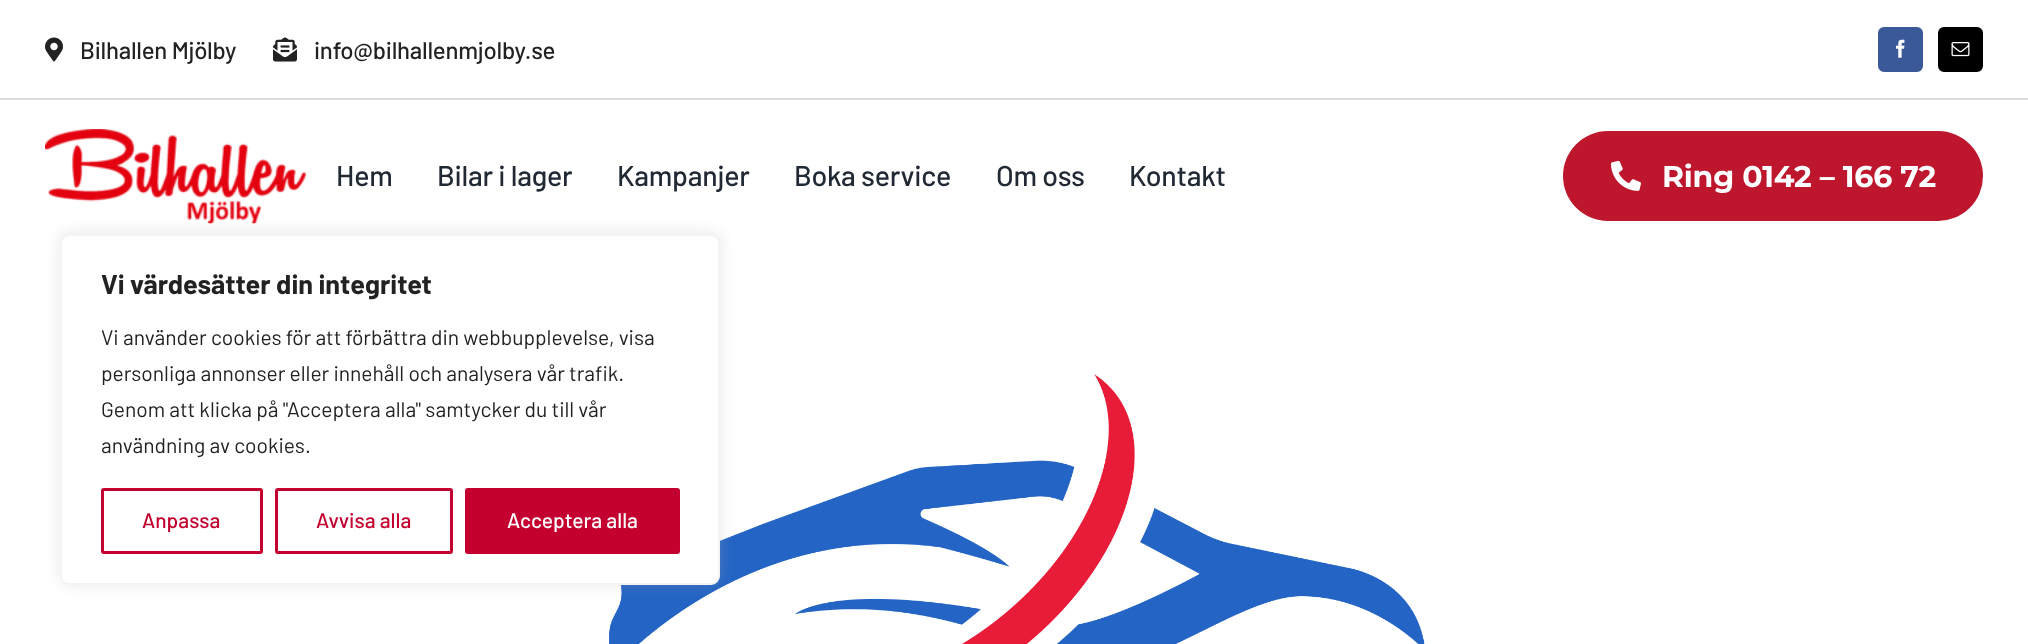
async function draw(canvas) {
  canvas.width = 2028;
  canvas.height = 644;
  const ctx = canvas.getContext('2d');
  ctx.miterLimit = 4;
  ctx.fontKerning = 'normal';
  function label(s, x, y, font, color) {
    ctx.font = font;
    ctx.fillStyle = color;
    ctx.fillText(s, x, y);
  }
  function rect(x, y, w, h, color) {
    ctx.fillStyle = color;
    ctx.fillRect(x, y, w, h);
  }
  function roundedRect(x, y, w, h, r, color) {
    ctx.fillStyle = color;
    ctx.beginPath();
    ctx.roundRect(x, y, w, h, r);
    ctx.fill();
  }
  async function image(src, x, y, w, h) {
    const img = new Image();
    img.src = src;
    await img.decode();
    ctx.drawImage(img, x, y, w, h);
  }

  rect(0, 0, 2028, 644, '#fff');
  rect(0, 98, 2028, 2, '#dbdbdb');
  await image('assets/img1.png', 45, 37, 18, 25);
  ctx.letterSpacing = '-0.25px';
  label('Bilhallen Mjölby', 80, 59, '500 24px Barlow', '#222');
  await image('assets/img2.png', 273, 37, 24, 25);
  label('info@bilhallenmjolby.se', 314, 59, '500 24px Barlow', '#222');
  ctx.fillStyle = '#3b5998';
  ctx.beginPath();
  ctx.roundRect(1879, 28, 43, 43, 5);
  ctx.fill();
  ctx.strokeStyle = '#3b5998';
  ctx.lineWidth = 2;
  ctx.stroke();
  await image('assets/img3.png', 1896, 39, 9, 19);
  ctx.fillStyle = '#000';
  ctx.beginPath();
  ctx.roundRect(1939, 28, 43, 43, 5);
  ctx.fill();
  ctx.strokeStyle = '#000';
  ctx.stroke();
  await image('assets/img4.png', 1951, 42, 19, 15);
  await image('assets/img5.png', 45, 129, 261, 95);
  label('Hem', 336, 186, '500 28.5px Barlow', '#212934');
  label('Bilar i lager', 437, 186, '500 28.5px Barlow', '#212934');
  label('Kampanjer', 617, 186, '500 28.5px Barlow', '#212934');
  label('Boka service', 794, 186, '500 28.5px Barlow', '#212934');
  label('Om oss', 996, 186, '500 28.5px Barlow', '#212934');
  label('Kontakt', 1129, 186, '500 28.5px Barlow', '#212934');
  roundedRect(1563, 131, 420, 90, 45, '#bd162d');
  await image('assets/img6.png', 1611, 160, 30, 31);
  label('Ring 0142 – 166 72', 1662, 187, 'bold 30px Montserrat', '#fff');
  await image('assets/img7.png', 602, 374, 823, 270);
  ctx.fillStyle = '#acabab4d';
  ctx.filter = 'blur(7.5px)';
  ctx.beginPath();
  ctx.roundRect(60, 233, 660, 351, 9);
  ctx.fill();
  ctx.filter = 'none';
  ctx.fillStyle = '#fff';
  ctx.beginPath();
  ctx.roundRect(61, 235, 658, 349, 8);
  ctx.fill();
  ctx.strokeStyle = '#f4f4f4';
  ctx.stroke();
  ctx.letterSpacing = '0px';
  label('Vi värdesätter din integritet', 101, 294, 'bold 27px Barlow', '#222');
  label('Vi använder cookies för att förbättra din webbupplevelse, visa', 101, 345, '21px Barlow', '#222');
  label('personliga annonser eller innehåll och analysera vår trafik.', 101, 381, '21px Barlow', '#222');
  label('Genom att klicka på "Acceptera alla" samtycker du till vår', 101, 417, '21px Barlow', '#222');
  label('användning av cookies.', 101, 453, '21px Barlow', '#222');
  ctx.beginPath();
  ctx.roundRect(102.5, 489.5, 159, 63, 1.5);
  ctx.strokeStyle = '#c3002f';
  ctx.lineWidth = 3;
  ctx.stroke();
  label('Anpassa', 142, 528, '500 21px Barlow', '#c3002f');
  ctx.beginPath();
  ctx.roundRect(276.5, 489.5, 175, 63, 1.5);
  ctx.stroke();
  label('Avvisa alla', 316, 528, '500 21px Barlow', '#c3002f');
  ctx.beginPath();
  ctx.roundRect(466.5, 489.5, 212, 63, 1.5);
  ctx.fill();
  ctx.stroke();
  label('Acceptera alla', 507, 528, '500 21px Barlow', '#fff');
}

draw(document.querySelector('canvas'));
